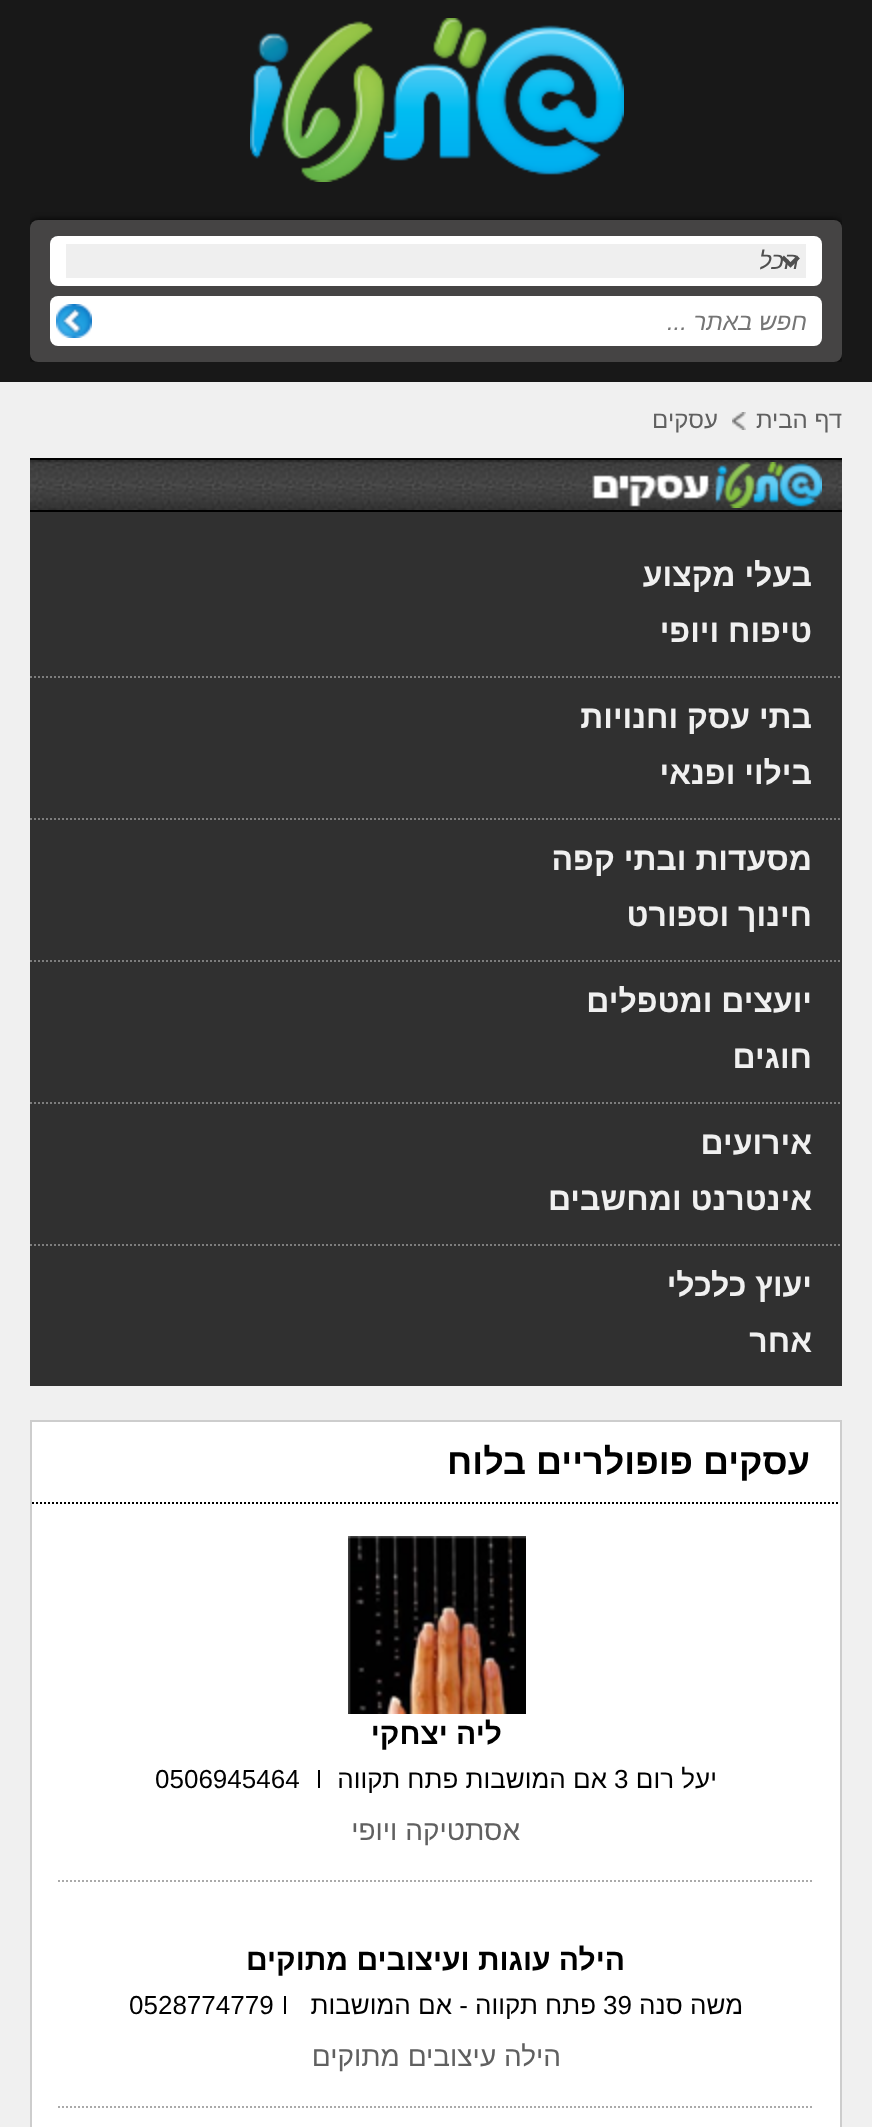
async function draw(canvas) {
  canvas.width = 872;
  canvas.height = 2127;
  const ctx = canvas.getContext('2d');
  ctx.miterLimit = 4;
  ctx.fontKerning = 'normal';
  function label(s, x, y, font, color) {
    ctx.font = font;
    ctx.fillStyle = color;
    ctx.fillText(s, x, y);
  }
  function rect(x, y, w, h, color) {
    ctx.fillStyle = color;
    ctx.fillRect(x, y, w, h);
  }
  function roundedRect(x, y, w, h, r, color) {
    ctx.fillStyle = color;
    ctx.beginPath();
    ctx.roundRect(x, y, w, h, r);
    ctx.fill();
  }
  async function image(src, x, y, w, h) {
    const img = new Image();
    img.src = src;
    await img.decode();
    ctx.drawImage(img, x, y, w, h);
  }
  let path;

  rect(0, 0, 872, 2127, '#f0f0f0');
  rect(0, 0, 872, 382, '#181818');
  await image('assets/img1.png', 250, 18, 374, 164);
  ctx.save();
  ctx.beginPath();
  ctx.rect(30, 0, 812, 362);
  ctx.clip();
  ctx.fillStyle = '#000';
  ctx.filter = 'blur(3px)';
  ctx.beginPath();
  ctx.roundRect(30, 220, 812, 142, 8);
  ctx.fill();
  ctx.filter = 'none';
  ctx.restore();
  roundedRect(30, 220, 812, 142, 8, '#454444');
  roundedRect(50, 236, 772, 50, 8, '#fff');
  rect(66, 244, 740, 34, '#efefef');
  path = new Path2D('M782.5 257L790.5 265L798.5 257');
  ctx.strokeStyle = '#4f4f4f';
  ctx.lineWidth = 4;
  ctx.stroke(path);
  ctx.direction = 'rtl';
  label('הכל', 799, 269, 'italic 24px Liberation Sans', '#4f4f4f');
  roundedRect(50, 296, 772, 50, 8, '#fff');
  label('חפש באתר ...', 807, 330, 'italic 24px Liberation Sans', '#757575');
  await image('assets/img2.png', 56, 304, 36, 34);
  await image('assets/img3.png', 732, 412, 14, 18);
  label('דף הבית', 842, 428, '24px Liberation Sans', '#606060');
  label('עסקים', 718, 428, '24px Liberation Sans', '#606060');
  await image('assets/img4.png', 30, 460, 812, 50);
  rect(30, 458, 812, 2, '#000');
  rect(30, 510, 812, 2, '#000');
  await image('assets/img5.png', 592, 462, 230, 46);
  rect(30, 512, 812, 874, '#303030');
  path = new Path2D('M30 677H842');
  ctx.strokeStyle = '#7d7d7d';
  ctx.lineWidth = 2;
  ctx.setLineDash([2, 2]);
  ctx.stroke(path);
  label('בעלי מקצוע', 812, 586, 'bold 32px Liberation Sans', '#f0f0f0');
  label('טיפוח ויופי', 812, 642, 'bold 32px Liberation Sans', '#f0f0f0');
  path = new Path2D('M30 819H842');
  ctx.stroke(path);
  label('בתי עסק וחנויות', 812, 728, 'bold 32px Liberation Sans', '#f0f0f0');
  label('בילוי ופנאי', 812, 784, 'bold 32px Liberation Sans', '#f0f0f0');
  path = new Path2D('M30 961H842');
  ctx.stroke(path);
  label('מסעדות ובתי קפה', 812, 870, 'bold 32px Liberation Sans', '#f0f0f0');
  label('חינוך וספורט', 812, 926, 'bold 32px Liberation Sans', '#f0f0f0');
  path = new Path2D('M30 1103H842');
  ctx.stroke(path);
  label('יועצים ומטפלים', 812, 1012, 'bold 32px Liberation Sans', '#f0f0f0');
  label('חוגים', 812, 1068, 'bold 32px Liberation Sans', '#f0f0f0');
  path = new Path2D('M30 1245H842');
  ctx.stroke(path);
  label('אירועים', 812, 1154, 'bold 32px Liberation Sans', '#f0f0f0');
  label('אינטרנט ומחשבים', 812, 1210, 'bold 32px Liberation Sans', '#f0f0f0');
  label('יעוץ כלכלי', 812, 1296, 'bold 32px Liberation Sans', '#f0f0f0');
  label('אחר', 812, 1352, 'bold 32px Liberation Sans', '#f0f0f0');
  ctx.fillStyle = '#fff';
  ctx.beginPath();
  ctx.rect(31, 1421, 810, 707);
  ctx.fill();
  ctx.strokeStyle = '#cdcdcd';
  ctx.setLineDash([]);
  ctx.stroke();
  path = new Path2D('M32 1503H840');
  ctx.strokeStyle = '#000';
  ctx.setLineDash([2, 2]);
  ctx.stroke(path);
  label('עסקים פופולריים בלוח', 810, 1474, 'bold 36px Liberation Sans', '#000');
  await image('assets/img6.png', 348, 1536, 178, 178);
  label('ליה יצחקי', 502, 1744, 'bold 30px Liberation Sans', '#000');
  label('יעל רום', 717, 1788, '26px Liberation Sans', '#000');
  ctx.direction = 'ltr';
  label('3', 614, 1788, '26px Liberation Sans', '#000');
  ctx.direction = 'rtl';
  label('אם המושבות פתח תקווה', 607, 1788, '26px Liberation Sans', '#000');
  rect(318, 1770, 2, 18, '#000');
  ctx.direction = 'ltr';
  label('0506945464', 155, 1788, '26px Liberation Sans', '#000');
  ctx.direction = 'rtl';
  label('אסתטיקה ויופי', 520, 1840, '28px Liberation Sans', '#606060');
  path = new Path2D('M58 1881H814');
  ctx.strokeStyle = '#aaa';
  ctx.stroke(path);
  label('הילה עוגות ועיצובים מתוקים', 625, 1970, 'bold 30px Liberation Sans', '#000');
  label('משה סנה', 743, 2014, '26px Liberation Sans', '#000');
  ctx.direction = 'ltr';
  label('39', 603, 2014, '26px Liberation Sans', '#000');
  ctx.direction = 'rtl';
  label('פתח תקווה - אם המושבות', 596, 2014, '26px Liberation Sans', '#000');
  rect(284, 1996, 2, 18, '#000');
  ctx.direction = 'ltr';
  label('0528774779', 129, 2014, '26px Liberation Sans', '#000');
  ctx.direction = 'rtl';
  label('הילה עיצובים מתוקים', 561, 2066, '28px Liberation Sans', '#606060');
  path = new Path2D('M58 2107H814');
  ctx.stroke(path);
}

draw(document.querySelector('canvas'));
